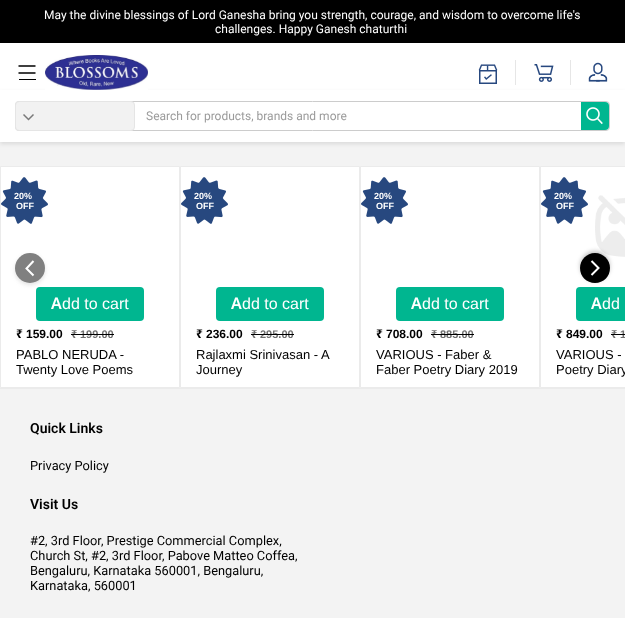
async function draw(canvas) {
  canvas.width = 625;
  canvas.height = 618;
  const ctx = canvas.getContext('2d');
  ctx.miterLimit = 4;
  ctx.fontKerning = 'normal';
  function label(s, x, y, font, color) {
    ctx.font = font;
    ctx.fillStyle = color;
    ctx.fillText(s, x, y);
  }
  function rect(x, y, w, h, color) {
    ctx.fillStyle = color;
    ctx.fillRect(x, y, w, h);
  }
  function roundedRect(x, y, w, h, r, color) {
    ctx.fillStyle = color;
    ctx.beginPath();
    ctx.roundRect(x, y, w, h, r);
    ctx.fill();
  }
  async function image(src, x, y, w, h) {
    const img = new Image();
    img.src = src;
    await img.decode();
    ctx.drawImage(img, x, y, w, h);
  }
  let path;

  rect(0, 0, 625, 618, '#f3f3f3');
  rect(0, 0, 625, 43, '#000');
  label('May the divine blessings of Lord Ganesha bring you strength, courage, and wisdom to overcome life\'s', 44, 19, '12px Roboto', '#fff');
  label('challenges. Happy Ganesh chaturthi', 215, 33, '12px Roboto', '#fff');
  rect(0, 43, 625, 47, '#fff');
  path = new Path2D('M18.5 66H35.5M18.5 73H35.5');
  ctx.strokeStyle = '#000';
  ctx.lineWidth = 1.4;
  ctx.stroke(path);
  rect(19, 79, 17, 1, '#000');
  ctx.fillStyle = '#0000001a';
  ctx.filter = 'blur(2px)';
  ctx.beginPath();
  ctx.rect(0, 92, 625, 52);
  ctx.fill();
  ctx.filter = 'none';
  await image('assets/img1.png', 45, 55, 103, 35);
  await image('assets/img2.png', 478, 64, 20, 20);
  rect(515, 60, 1, 25, '#e6e6e6');
  await image('assets/img3.png', 534, 64, 20, 18);
  rect(570, 60, 1, 25, '#e6e6e6');
  await image('assets/img4.png', 588, 62, 20, 20);
  rect(0, 90, 625, 52, '#fff');
  ctx.beginPath();
  ctx.roundRect(15.5, 101.5, 594, 29, 3.5);
  ctx.strokeStyle = '#ccc';
  ctx.lineWidth = 1;
  ctx.stroke();
  ctx.fillStyle = '#f2f2f2';
  ctx.beginPath();
  ctx.roundRect(15.5, 101.5, 119, 29, 3.5);
  ctx.fill();
  ctx.strokeStyle = '#e5e5e5';
  ctx.stroke();
  path = new Path2D('M23.5 114.5L28.5 119.5L33.5 114.5');
  ctx.strokeStyle = '#797979';
  ctx.lineWidth = 1.5;
  ctx.stroke(path);
  label('Search for products, brands and more', 146, 120, '12px Roboto', '#9b9b9b');
  ctx.fillStyle = '#00b690';
  ctx.beginPath();
  ctx.roundRect(581, 102, 28, 28, [0, 4, 4, 0]);
  ctx.fill();
  await image('assets/img5.png', 586, 107, 17, 18);
  ctx.fillStyle = '#fff';
  ctx.beginPath();
  ctx.rect(0.5, 166.5, 179, 221);
  ctx.fill();
  ctx.strokeStyle = '#ebebeb';
  ctx.lineWidth = 1;
  ctx.stroke();
  await image('assets/img6.png', 1, 177, 47, 47);
  label('20%', 14, 199, 'bold 9px Liberation Sans', '#fff');
  label('OFF', 16, 209, 'bold 9px Liberation Sans', '#fff');
  roundedRect(36, 287, 108, 34, 4, '#00b690');
  label('A', 51, 309, '600 16px Noto Sans', '#fff');
  label('dd to cart', 62, 309, '16px Liberation Sans', '#fff');
  label('₹', 16, 338, 'bold 12px Noto Sans', '#000');
  label('159.00', 26, 338, 'bold 12px Liberation Sans', '#000');
  label('₹', 71, 338, 'bold 11px Noto Sans', '#6f6f6f');
  label('199.00', 80, 338, 'bold 11px Liberation Sans', '#6f6f6f');
  rect(71, 334, 43, 1, '#000');
  label('PABLO NERUDA -', 16, 359, '13px Liberation Sans', '#000');
  label('Twenty Love Poems', 16, 374, '13px Liberation Sans', '#000');
  ctx.fillStyle = '#fff';
  ctx.beginPath();
  ctx.rect(180.5, 166.5, 179, 221);
  ctx.fill();
  ctx.stroke();
  await image('assets/img6.png', 181, 177, 47, 47);
  label('20%', 194, 199, 'bold 9px Liberation Sans', '#fff');
  label('OFF', 196, 209, 'bold 9px Liberation Sans', '#fff');
  roundedRect(216, 287, 108, 34, 4, '#00b690');
  label('A', 231, 309, '600 16px Noto Sans', '#fff');
  label('dd to cart', 242, 309, '16px Liberation Sans', '#fff');
  label('₹', 196, 338, 'bold 12px Noto Sans', '#000');
  label('236.00', 206, 338, 'bold 12px Liberation Sans', '#000');
  label('₹', 251, 338, 'bold 11px Noto Sans', '#6f6f6f');
  label('295.00', 260, 338, 'bold 11px Liberation Sans', '#6f6f6f');
  rect(251, 334, 43, 1, '#000');
  label('Rajlaxmi Srinivasan -', 196, 359, '13px Liberation Sans', '#000');
  label('A', 321, 359, '13px Liberation Sans', '#000');
  label('Journey', 196, 374, '13px Liberation Sans', '#000');
  ctx.fillStyle = '#fff';
  ctx.beginPath();
  ctx.rect(360.5, 166.5, 179, 221);
  ctx.fill();
  ctx.stroke();
  await image('assets/img6.png', 361, 177, 47, 47);
  label('20%', 374, 199, 'bold 9px Liberation Sans', '#fff');
  label('OFF', 376, 209, 'bold 9px Liberation Sans', '#fff');
  roundedRect(396, 287, 108, 34, 4, '#00b690');
  label('A', 411, 309, '600 16px Noto Sans', '#fff');
  label('dd to cart', 422, 309, '16px Liberation Sans', '#fff');
  label('₹', 376, 338, 'bold 12px Noto Sans', '#000');
  label('708.00', 386, 338, 'bold 12px Liberation Sans', '#000');
  label('₹', 431, 338, 'bold 11px Noto Sans', '#6f6f6f');
  label('885.00', 440, 338, 'bold 11px Liberation Sans', '#6f6f6f');
  rect(431, 334, 43, 1, '#000');
  label('VARIOUS - Faber &', 376, 359, '13px Liberation Sans', '#000');
  label('Faber Poetry Diary 2019', 376, 374, '13px Liberation Sans', '#000');
  ctx.fillStyle = '#fff';
  ctx.beginPath();
  ctx.rect(540.5, 166.5, 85, 221);
  ctx.fill();
  ctx.stroke();
  await image('assets/img6.png', 541, 177, 47, 47);
  label('20%', 554, 199, 'bold 9px Liberation Sans', '#fff');
  label('OFF', 556, 209, 'bold 9px Liberation Sans', '#fff');
  await image('assets/img7.png', 595, 195, 30, 62);
  ctx.fillStyle = '#00b690';
  ctx.beginPath();
  ctx.roundRect(576, 287, 49, 34, [4, 0, 0, 4]);
  ctx.fill();
  label('A', 591, 309, '600 16px Noto Sans', '#fff');
  label('dd', 602, 309, '16px Liberation Sans', '#fff');
  label('₹', 556, 338, 'bold 12px Noto Sans', '#000');
  label('849.00', 566, 338, 'bold 12px Liberation Sans', '#000');
  label('₹', 611, 338, 'bold 11px Noto Sans', '#6f6f6f');
  label('1', 620, 338, 'bold 11px Liberation Sans', '#6f6f6f');
  rect(611, 334, 14, 1, '#000');
  label('VARIOUS -', 556, 359, '13px Liberation Sans', '#000');
  label('Poetry Diary', 556, 374, '13px Liberation Sans', '#000');
  ctx.fillStyle = '#8080803b';
  ctx.filter = 'blur(2px)';
  ctx.beginPath();
  ctx.roundRect(15, 255, 30, 30, 15);
  ctx.fill();
  ctx.filter = 'none';
  ctx.fillStyle = '#808080';
  ctx.beginPath();
  ctx.arc(30, 268, 15, 0, 2 * Math.PI);
  ctx.fill();
  path = new Path2D('M33.5 275.5L26.5 268.5L33.5 261');
  ctx.strokeStyle = '#fff';
  ctx.lineWidth = 2;
  ctx.stroke(path);
  ctx.fillStyle = '#0000003b';
  ctx.filter = 'blur(2px)';
  ctx.beginPath();
  ctx.roundRect(580, 251, 30, 30, 15);
  ctx.fill();
  ctx.filter = 'none';
  ctx.fillStyle = '#000';
  path = new Path2D('M595 283C586.5 283 580 276.5 580 268C580 260 586.5 253 595 253C603.5 253 610 260 610 268C610 276.5 603.5 283 595 283Z');
  ctx.fill(path);
  path = new Path2D('M591.5 261L598.5 268L591.5 275');
  ctx.stroke(path);
  rect(0, 388, 625, 1, '#ebebeb');
  label('Quick Links', 30, 433, '600 14px Roboto', '#000');
  label('Privacy Policy', 30, 470, '12.8px Roboto', '#000');
  label('Visit Us', 30, 509, '600 14px Roboto', '#000');
  label('#2, 3rd Floor, Prestige Commercial Complex,', 30, 545, '12.8px Roboto', '#000');
  label('Church St, #2, 3rd Floor, Pabove Matteo Coffea,', 30, 560, '12.8px Roboto', '#000');
  label('Bengaluru, Karnataka 560001, Bengaluru,', 30, 575, '12.8px Roboto', '#000');
  label('Karnataka, 560001', 30, 590, '12.8px Roboto', '#000');
}

draw(document.querySelector('canvas'));
